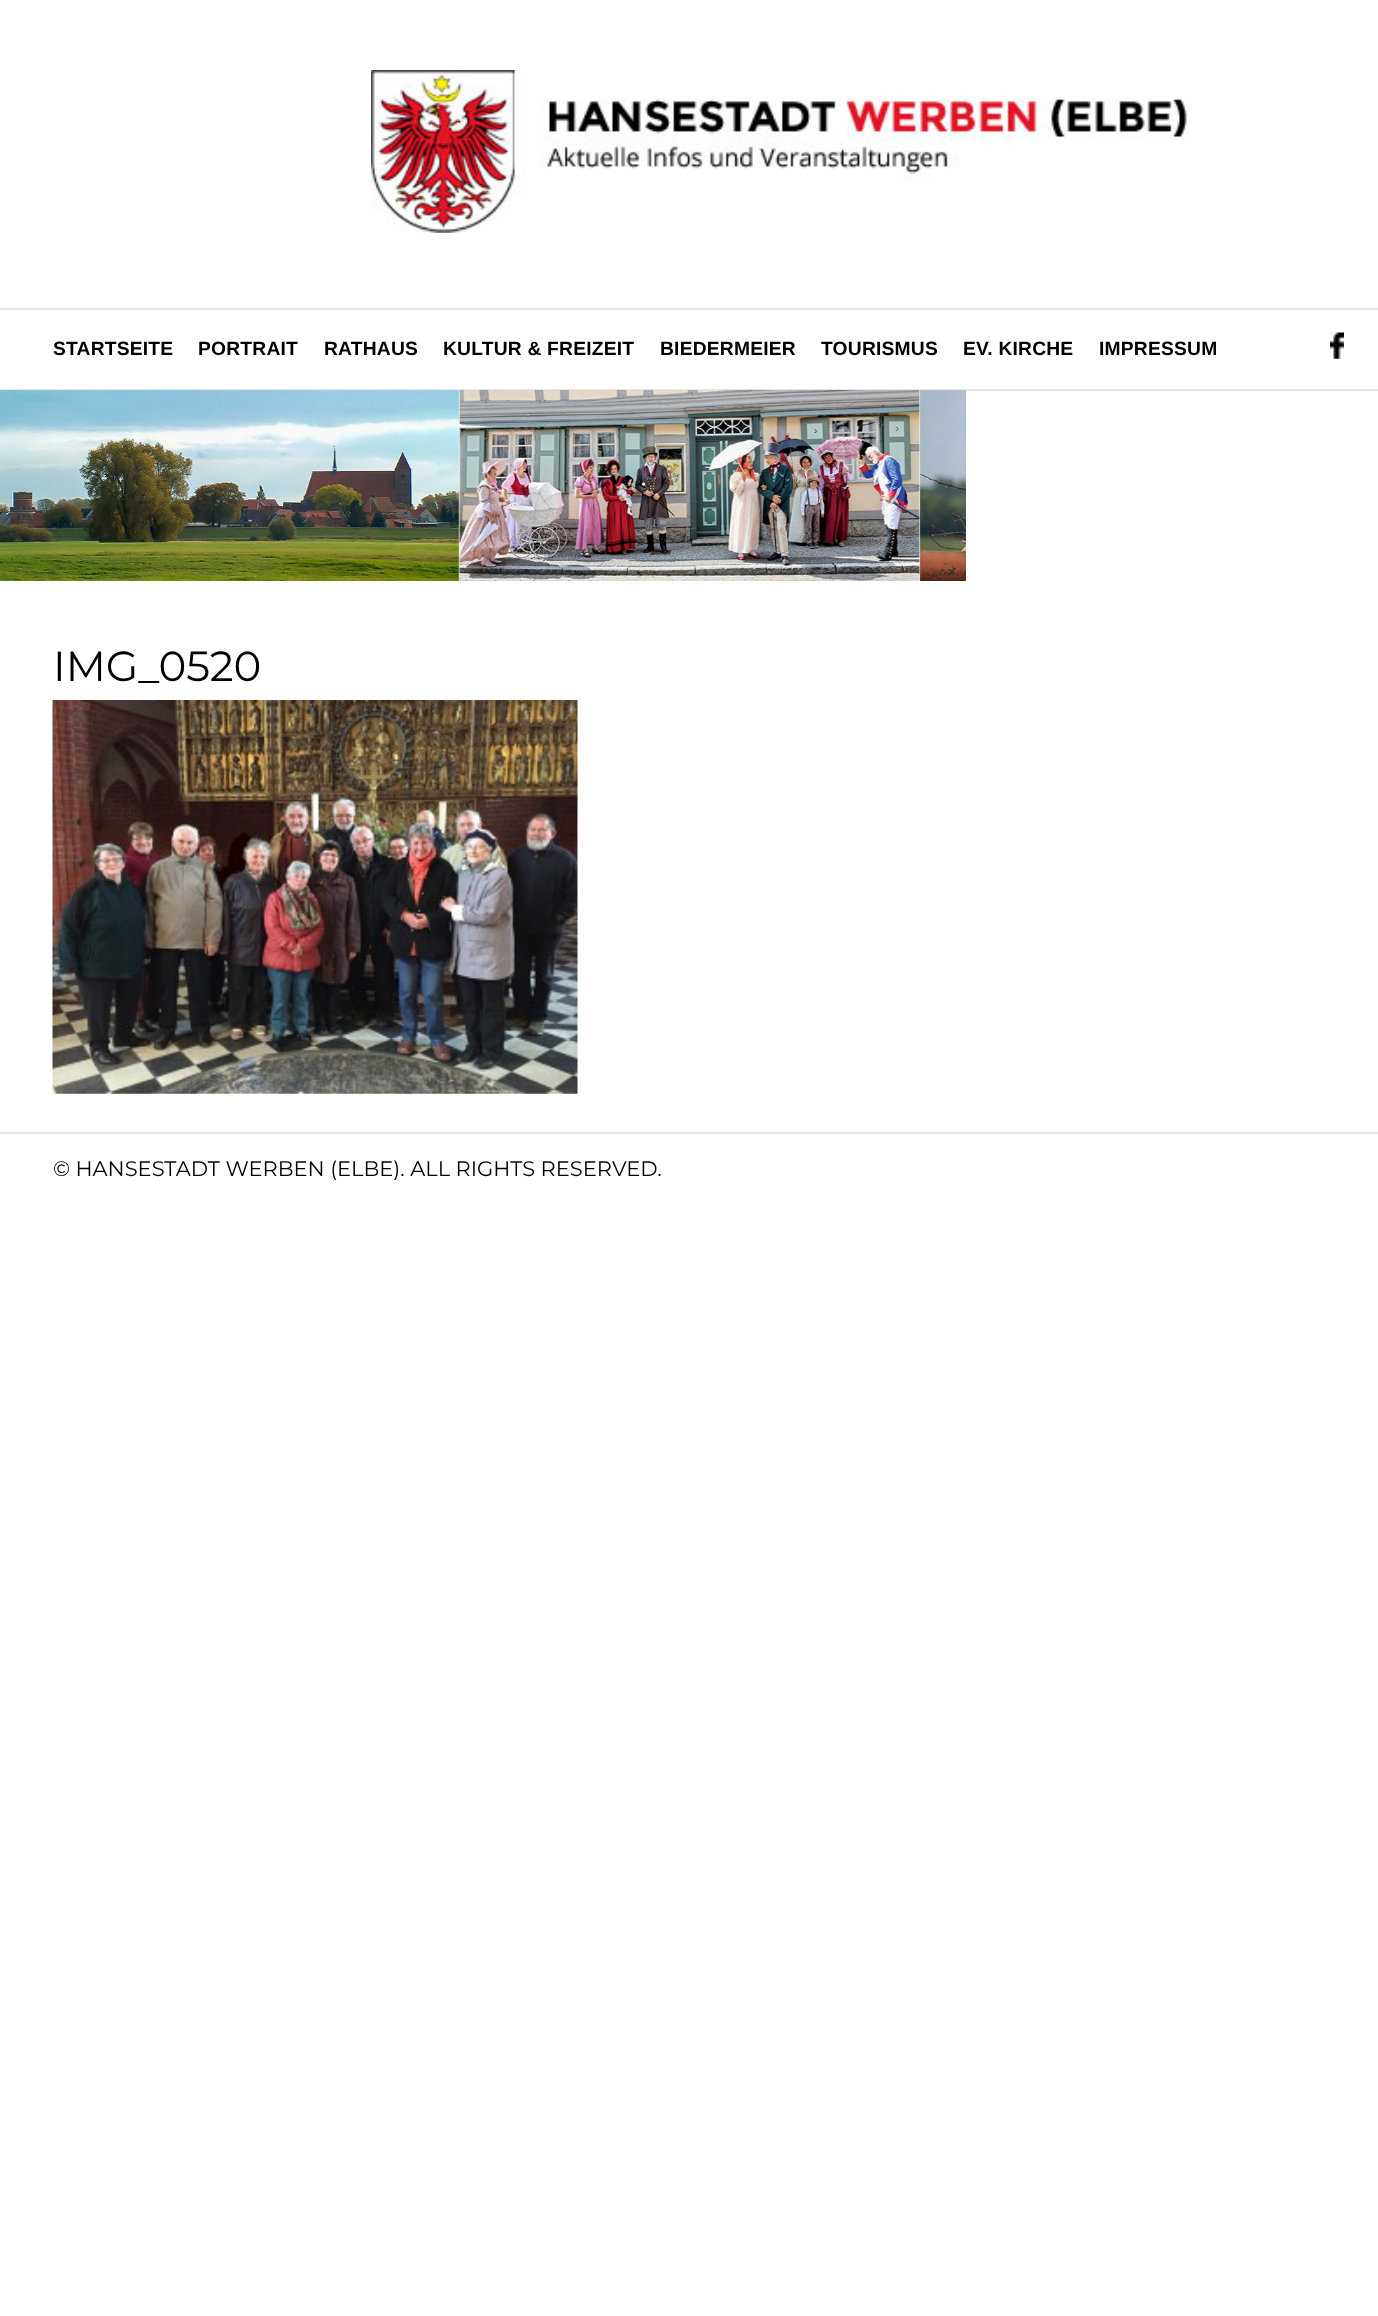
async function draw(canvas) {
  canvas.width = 1378;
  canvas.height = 2316;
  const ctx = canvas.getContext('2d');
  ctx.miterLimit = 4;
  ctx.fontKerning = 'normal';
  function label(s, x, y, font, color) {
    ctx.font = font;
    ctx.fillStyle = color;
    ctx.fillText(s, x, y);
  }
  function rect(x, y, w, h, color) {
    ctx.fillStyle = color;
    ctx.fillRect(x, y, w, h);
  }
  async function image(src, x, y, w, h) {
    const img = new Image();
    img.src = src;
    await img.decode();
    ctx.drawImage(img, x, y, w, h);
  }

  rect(0, 0, 1378, 2316, '#fff');
  await image('assets/img1.png', 371, 70, 816, 163);
  rect(0, 308, 1378, 2, '#e5e5e5');
  rect(0, 389, 1378, 2, '#e5e5e5');
  ctx.letterSpacing = '0.2px';
  label('STARTSEITE', 53, 355, 'bold 19.25px Liberation Sans', '#000');
  label('PORTRAIT', 198, 355, 'bold 19.25px Liberation Sans', '#000');
  label('RATHAUS', 324, 355, 'bold 19.25px Liberation Sans', '#000');
  label('KULTUR & FREIZEIT', 443, 355, 'bold 19.25px Liberation Sans', '#000');
  label('BIEDERMEIER', 660, 355, 'bold 19.25px Liberation Sans', '#000');
  label('TOURISMUS', 821, 355, 'bold 19.25px Liberation Sans', '#000');
  label('EV. KIRCHE', 963, 355, 'bold 19.25px Liberation Sans', '#000');
  label('IMPRESSUM', 1099, 355, 'bold 19.25px Liberation Sans', '#000');
  await image('assets/img2.png', 1330, 332, 14, 27);
  await image('assets/img3.png', 0, 390, 966, 191);
  ctx.letterSpacing = '0px';
  label('IMG_0520', 53, 681, '42px Montserrat', '#000');
  await image('assets/img4.png', 52, 700, 526, 394);
  rect(0, 1132, 1378, 2, '#e5e5e5');
  label('© HANSESTADT WERBEN (ELBE). ALL RIGHTS RESERVED.', 53, 1176, '21px Montserrat', '#000');
}

draw(document.querySelector('canvas'));
